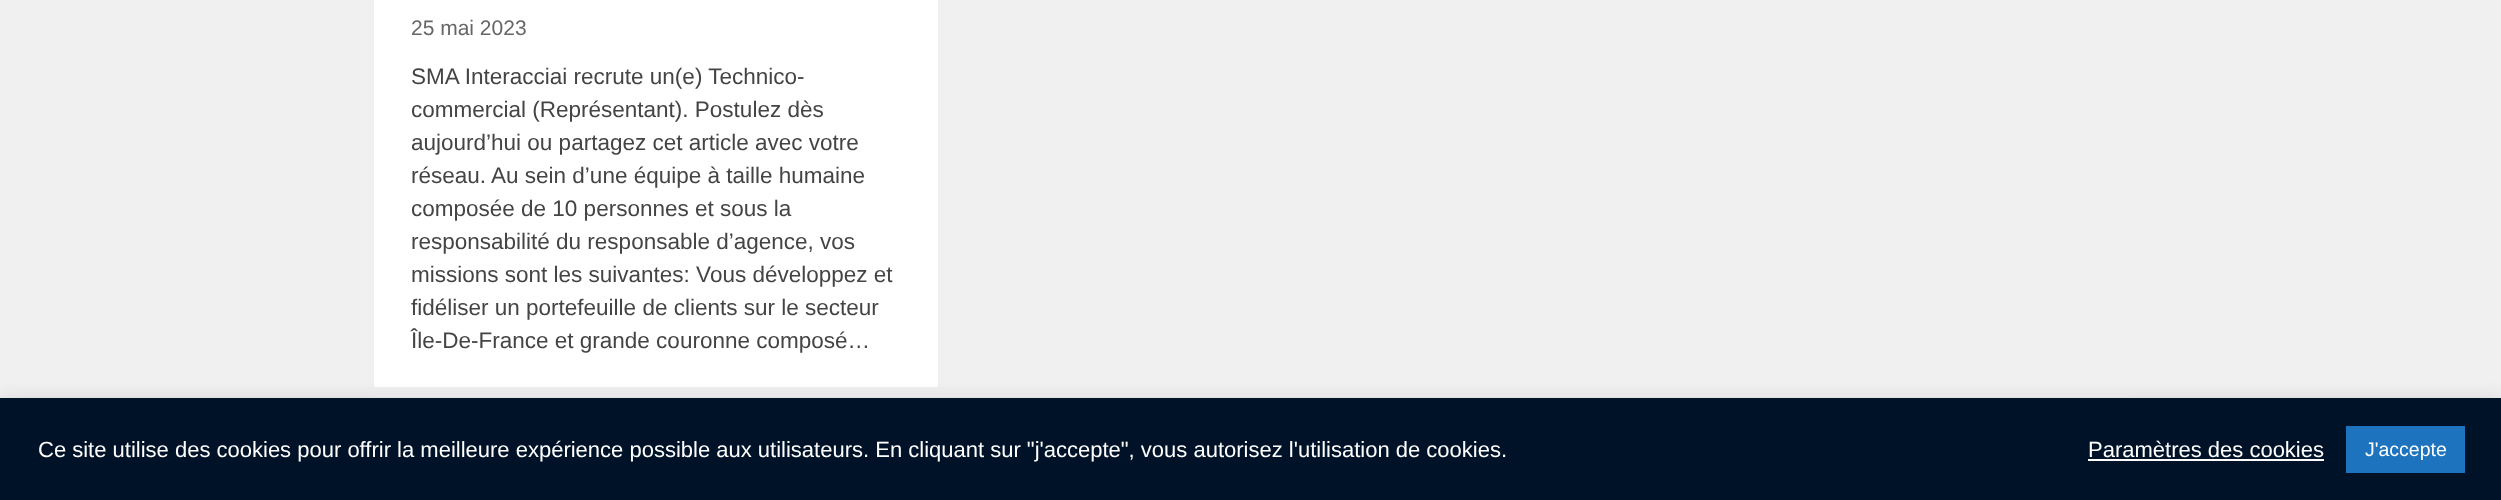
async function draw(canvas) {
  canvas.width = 2501;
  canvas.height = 500;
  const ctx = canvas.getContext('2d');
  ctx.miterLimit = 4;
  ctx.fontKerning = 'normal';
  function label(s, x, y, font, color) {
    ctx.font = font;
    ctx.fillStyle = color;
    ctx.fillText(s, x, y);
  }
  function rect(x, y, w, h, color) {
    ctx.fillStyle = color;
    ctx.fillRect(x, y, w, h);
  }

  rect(0, 0, 2501, 500, '#f0f0f0');
  rect(374, 0, 564, 387, '#fff');
  label('25 mai 2023', 411, 35, '21px Liberation Sans', '#666');
  label('SMA Interacciai recrute un(e) Technico-', 411, 84, '22.5px Liberation Sans', '#444');
  label('commercial (Représentant). Postulez dès', 411, 117, '22.5px Liberation Sans', '#444');
  label('aujourd’hui ou partagez cet article avec votre', 411, 150, '22.5px Liberation Sans', '#444');
  label('réseau. Au sein d’une équipe à taille humaine', 411, 183, '22.5px Liberation Sans', '#444');
  label('composée de 10 personnes et sous la', 411, 216, '22.5px Liberation Sans', '#444');
  label('responsabilité du responsable d’agence, vos', 411, 249, '22.5px Liberation Sans', '#444');
  label('missions sont les suivantes: Vous développez et', 411, 282, '22.5px Liberation Sans', '#444');
  label('fidéliser un portefeuille de clients sur le secteur', 411, 315, '22.5px Liberation Sans', '#444');
  label('Île-De-France et grande couronne composé…', 411, 348, '22.5px Liberation Sans', '#444');
  rect(374, 395, 1755, 2, '#f3f3f3');
  ctx.fillStyle = '#acabab4d';
  ctx.filter = 'blur(7.5px)';
  ctx.beginPath();
  ctx.rect(0, 396, 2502, 104);
  ctx.fill();
  ctx.filter = 'none';
  rect(0, 398, 2501, 102, '#001228');
  label('Ce site utilise des cookies pour offrir la meilleure expérience possible aux utilisateurs. En cliquant sur "j\'accepte", vous autorisez l\'utilisation de cookies.', 38, 457, '22px Liberation Sans', '#fff');
  label('Paramètres des cookies', 2088, 457, '22px Liberation Sans', '#fff');
  rect(2088, 459, 236, 2, '#fff');
  rect(2346, 426, 119, 47, '#1e73be');
  label('J\'accepte', 2365, 456, '19.5px Liberation Sans', '#fff');
}

draw(document.querySelector('canvas'));
